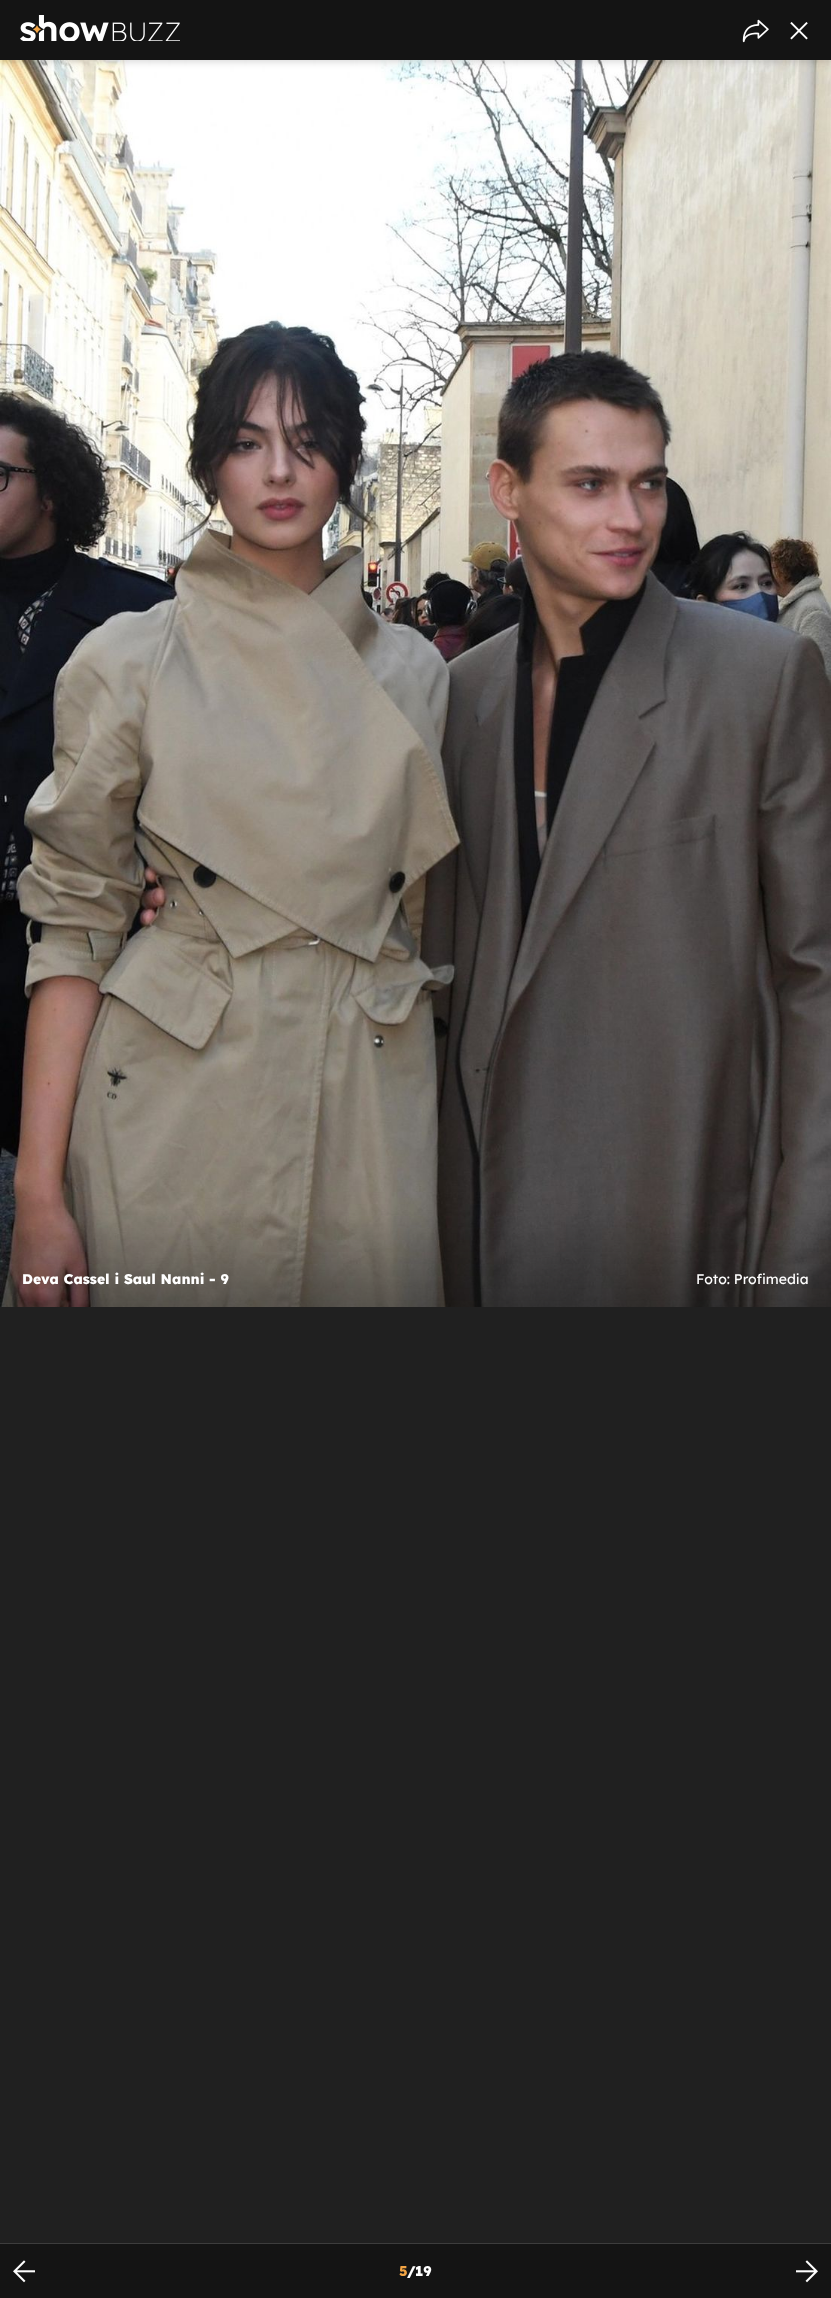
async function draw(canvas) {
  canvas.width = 831;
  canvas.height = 2298;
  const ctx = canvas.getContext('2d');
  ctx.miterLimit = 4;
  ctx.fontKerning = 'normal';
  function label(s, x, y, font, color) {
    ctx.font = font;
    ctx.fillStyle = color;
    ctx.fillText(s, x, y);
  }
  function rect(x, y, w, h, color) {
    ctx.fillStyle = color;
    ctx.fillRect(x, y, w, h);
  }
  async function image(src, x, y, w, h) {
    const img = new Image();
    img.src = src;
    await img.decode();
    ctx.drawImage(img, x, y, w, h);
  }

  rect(0, 0, 831, 2298, '#202020');
  await image('assets/img4.png', 0, 60, 831, 1247);
  ctx.fillStyle = '#00000026';
  ctx.filter = 'blur(3.5px)';
  ctx.beginPath();
  ctx.rect(0, 2, 831, 60);
  ctx.fill();
  ctx.filter = 'none';
  rect(0, 0, 831, 60, '#141414');
  await image('assets/img1.png', 20, 15, 160, 26);
  await image('assets/img2.png', 742, 19, 27, 24);
  await image('assets/img3.png', 790, 22, 18, 18);
  label('Deva Cassel i Saul Nanni - 9', 22, 1284, '800 14px Lexend', '#fff');
  label('Foto: Profimedia', 696, 1284, '14px Lexend', '#fff');
  rect(0, 2244, 831, 54, '#141414');
  rect(0, 2243, 831, 1, '#3d3d3d');
  await image('assets/img5.png', 13, 2260, 22, 23);
  label('5', 399, 2276, '800 14px Lexend', '#f2a444');
  label('/', 407, 2276, '800 14px Lexend', '#fff');
  label('19', 415, 2276, '800 14px Lexend', '#fff');
  await image('assets/img6.png', 796, 2260, 22, 23);
}

draw(document.querySelector('canvas'));
